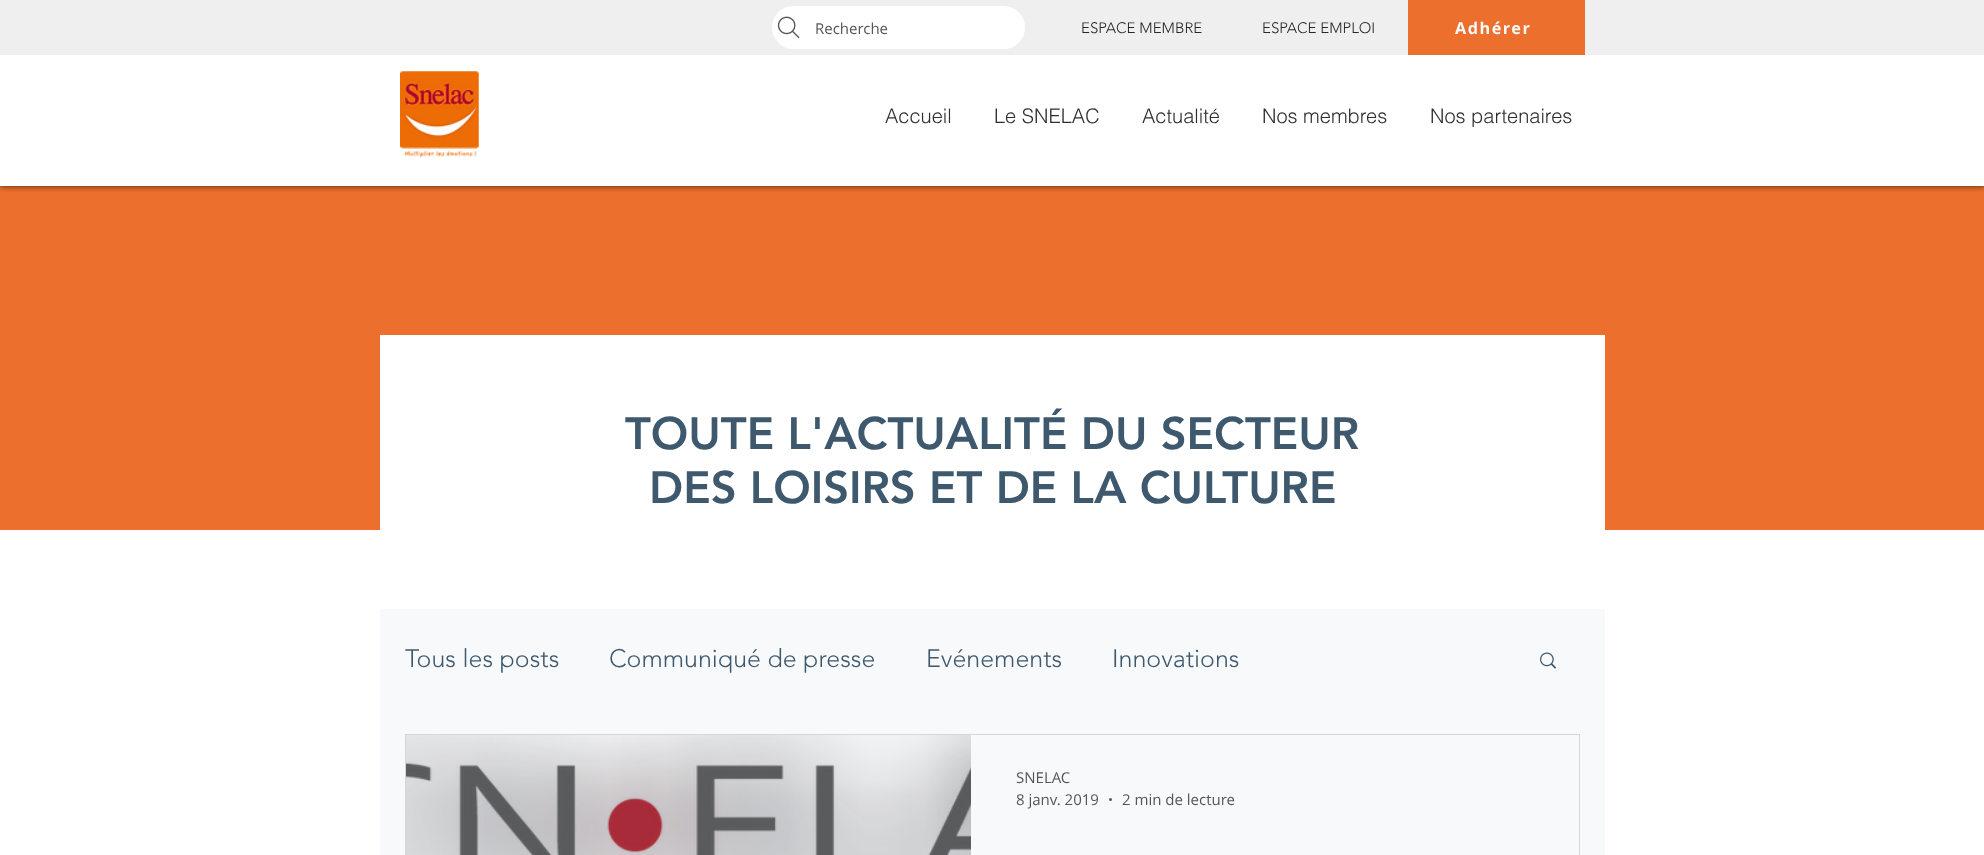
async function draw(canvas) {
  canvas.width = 1984;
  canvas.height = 855;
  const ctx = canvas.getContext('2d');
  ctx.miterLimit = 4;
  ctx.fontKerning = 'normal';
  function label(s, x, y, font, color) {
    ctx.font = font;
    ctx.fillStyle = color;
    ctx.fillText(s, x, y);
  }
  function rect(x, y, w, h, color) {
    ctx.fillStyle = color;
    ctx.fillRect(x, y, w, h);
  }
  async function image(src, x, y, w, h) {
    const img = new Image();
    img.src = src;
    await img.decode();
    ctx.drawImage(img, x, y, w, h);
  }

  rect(0, 0, 1984, 855, '#fff');
  rect(0, 186, 1984, 344, '#ec6f2d');
  ctx.save();
  ctx.beginPath();
  ctx.rect(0, 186, 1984, 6);
  ctx.clip();
  ctx.fillStyle = '#000000b3';
  ctx.filter = 'blur(3px)';
  ctx.beginPath();
  ctx.rect(0, 0, 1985, 186);
  ctx.fill();
  ctx.filter = 'none';
  ctx.restore();
  rect(0, 0, 1984, 55, '#efefef');
  ctx.fillStyle = '#fff';
  ctx.beginPath();
  ctx.roundRect(769, 3, 259, 49, 24.5);
  ctx.fill();
  ctx.strokeStyle = '#efefef';
  ctx.lineWidth = 6;
  ctx.stroke();
  await image('assets/img1.png', 777, 16, 23, 23);
  label('Recherche', 815, 34, '15px Open Sans', '#555');
  label('ESPACE MEMBRE', 1081, 33, '300 15px "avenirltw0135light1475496"', '#282626');
  label('ESPACE EMPLOI', 1262, 33, '300 15px "avenirltw0135light1475496"', '#282626');
  rect(1408, 0, 177, 55, '#ec6f2d');
  ctx.letterSpacing = '1.5px';
  label('Adhérer', 1455, 34, 'bold 16.25px Open Sans', '#f8f9fb');
  await image('assets/img2.png', 400, 71, 79, 87);
  ctx.letterSpacing = '0px';
  label('Accueil', 885, 123, '300 20px helvetica', '#2f2e2e');
  label('Le SNELAC', 994, 123, '300 20px helvetica', '#2f2e2e');
  label('Actualité', 1142, 123, '300 20px helvetica', '#2f2e2e');
  label('Nos membres', 1262, 123, '300 20px helvetica', '#2f2e2e');
  label('Nos partenaires', 1430, 123, '300 20px helvetica', '#2f2e2e');
  rect(380, 335, 1225, 195, '#fff');
  label('TOUTE L\'ACTUALITÉ DU SECTEUR', 625, 449, '900 45px "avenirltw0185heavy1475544"', '#3e596e');
  label('DES LOISIRS ET DE LA CULTURE', 649, 503, '900 45px "avenirltw0185heavy1475544"', '#3e596e');
  rect(380, 609, 1225, 246, '#f8f9fb');
  label('Tous les posts', 405, 667, '300 25px "avenirltw0135light1475496"', '#3e596e');
  label('Communiqué de presse', 609, 667, '300 25px "avenirltw0135light1475496"', '#3e596e');
  label('Evénements', 926, 667, '300 25px "avenirltw0135light1475496"', '#3e596e');
  label('Innovations', 1112, 667, '300 25px "avenirltw0135light1475496"', '#3e596e');
  await image('assets/img3.png', 1540, 652, 17, 17);
  ctx.strokeStyle = '#d5d6d9';
  ctx.lineWidth = 1;
  ctx.strokeRect(405.5, 734.5, 1174, 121);
  await image('assets/img4.png', 406, 735, 565, 120);
  await image('assets/img5.png', 406, 762, 565, 93);
  label('SNELAC', 1016, 783, '15px Open Sans', '#555');
  label('8 janv. 2019', 1016, 805, '15px Open Sans', '#555');
  ctx.beginPath();
  ctx.arc(1110.5, 799.5, 1.5, 0, 2 * Math.PI);
  ctx.fill();
  label('2 min de lecture', 1122, 805, '15px Open Sans', '#555');
}

draw(document.querySelector('canvas'));
